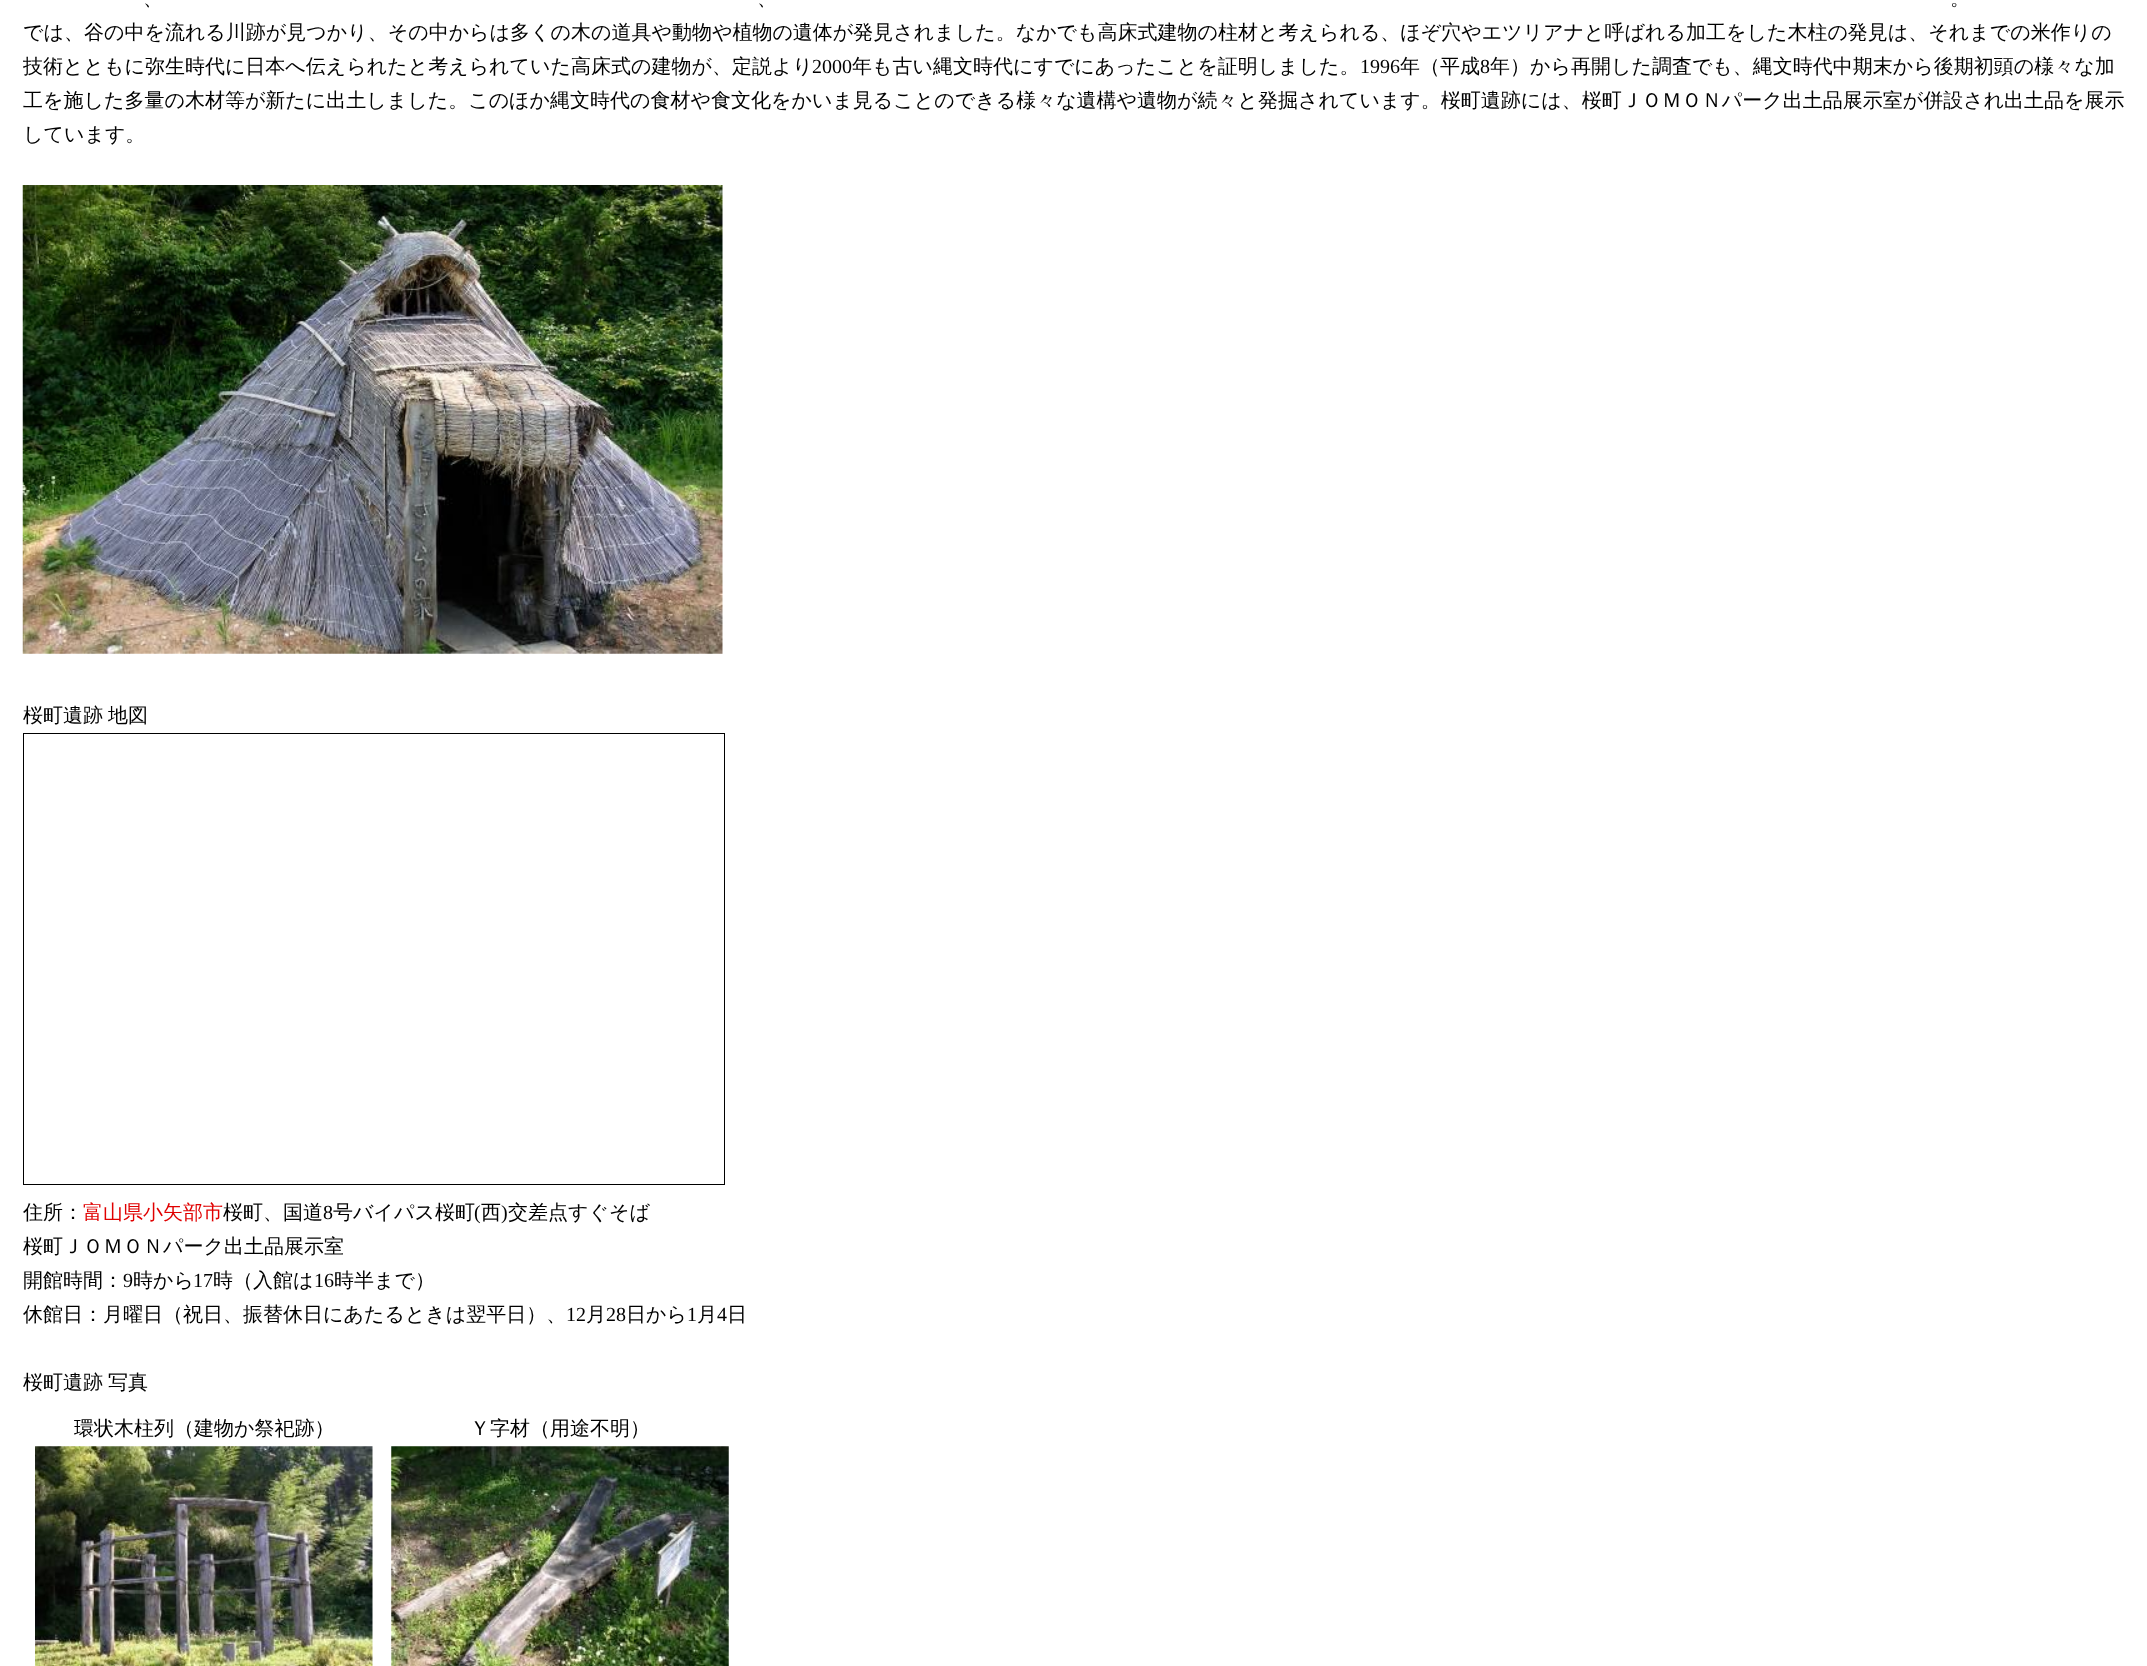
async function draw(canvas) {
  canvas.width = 2147;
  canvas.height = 1666;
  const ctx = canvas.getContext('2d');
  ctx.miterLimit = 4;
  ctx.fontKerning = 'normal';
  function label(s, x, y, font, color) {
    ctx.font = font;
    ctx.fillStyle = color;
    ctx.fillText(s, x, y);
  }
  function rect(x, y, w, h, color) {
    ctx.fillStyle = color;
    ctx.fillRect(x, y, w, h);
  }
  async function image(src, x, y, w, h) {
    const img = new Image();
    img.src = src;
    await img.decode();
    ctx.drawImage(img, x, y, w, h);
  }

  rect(0, 0, 2147, 1666, '#fff');
  label('、', 143, 5, '500 20px WenQuanYi Zen Hei', '#000');
  label('、', 757, 5, '500 20px WenQuanYi Zen Hei', '#000');
  label('。', 1950, 5, '500 20px WenQuanYi Zen Hei', '#000');
  label('では、谷の中を流れる川跡が見つかり、その中からは多くの木の道具や動物や植物の遺体が発見されました。なかでも高床式建物の柱材と考えられる、ほぞ穴やエツリアナと呼ばれる加工をした木柱の発見は、それまでの米作りの', 23, 39, '500 20px WenQuanYi Zen Hei', '#000');
  label('技術とともに弥生時代に日本へ伝えられたと考えられていた高床式の建物が、定説より', 23, 73, '500 20px WenQuanYi Zen Hei', '#000');
  label('2000', 812, 73, '20px Liberation Serif', '#000');
  label('年も古い縄文時代にすでにあったことを証明しました。', 852, 73, '500 20px WenQuanYi Zen Hei', '#000');
  label('1996', 1360, 73, '20px Liberation Serif', '#000');
  label('年（平成', 1400, 73, '500 20px WenQuanYi Zen Hei', '#000');
  label('8', 1480, 73, '20px Liberation Serif', '#000');
  label('年）から再開した調査でも、縄文時代中期末から後期初頭の様々な加', 1490, 73, '500 20px WenQuanYi Zen Hei', '#000');
  label('工を施した多量の木材等が新たに出土しました。このほか縄文時代の食材や食文化をかいま見ることのできる様々な遺構や遺物が続々と発掘されています。桜町遺跡には、桜町ＪＯＭＯＮパーク出土品展示室が併設され出土品を展示', 23, 107, '500 20px WenQuanYi Zen Hei', '#000');
  label('しています。', 23, 141, '500 20px WenQuanYi Zen Hei', '#000');
  await image('assets/img1.png', 22, 185, 701, 469);
  ctx.wordSpacing = '-1px';
  label('桜町遺跡 地図', 23, 722, '500 20px WenQuanYi Zen Hei', '#000');
  ctx.strokeStyle = '#000';
  ctx.strokeRect(23.5, 733.5, 701, 451);
  ctx.wordSpacing = '0px';
  label('住所：', 23, 1219, '500 20px WenQuanYi Zen Hei', '#000');
  label('富山県小矢部市', 83, 1219, '500 20px WenQuanYi Zen Hei', '#e00000');
  label('桜町、国道', 223, 1219, '500 20px WenQuanYi Zen Hei', '#000');
  label('8', 323, 1219, '20px Liberation Serif', '#000');
  label('号バイパス桜町', 333, 1219, '500 20px WenQuanYi Zen Hei', '#000');
  label('(', 474, 1219, '20px Liberation Serif', '#000');
  label('西', 481, 1219, '500 20px WenQuanYi Zen Hei', '#000');
  label(')', 501, 1219, '20px Liberation Serif', '#000');
  label('交差点すぐそば', 508, 1219, '500 20px WenQuanYi Zen Hei', '#000');
  label('桜町ＪＯＭＯＮパーク出土品展示室', 23, 1253, '500 20px WenQuanYi Zen Hei', '#000');
  label('開館時間：', 23, 1287, '500 20px WenQuanYi Zen Hei', '#000');
  label('9', 123, 1287, '20px Liberation Serif', '#000');
  label('時から', 133, 1287, '500 20px WenQuanYi Zen Hei', '#000');
  label('17', 193, 1287, '20px Liberation Serif', '#000');
  label('時（入館は', 213, 1287, '500 20px WenQuanYi Zen Hei', '#000');
  label('16', 314, 1287, '20px Liberation Serif', '#000');
  label('時半まで）', 334, 1287, '500 20px WenQuanYi Zen Hei', '#000');
  label('休館日：月曜日（祝日、振替休日にあたるときは翌平日）、', 23, 1321, '500 20px WenQuanYi Zen Hei', '#000');
  label('12', 566, 1321, '20px Liberation Serif', '#000');
  label('月', 586, 1321, '500 20px WenQuanYi Zen Hei', '#000');
  label('28', 606, 1321, '20px Liberation Serif', '#000');
  label('日から', 626, 1321, '500 20px WenQuanYi Zen Hei', '#000');
  label('1', 687, 1321, '20px Liberation Serif', '#000');
  label('月', 697, 1321, '500 20px WenQuanYi Zen Hei', '#000');
  label('4', 717, 1321, '20px Liberation Serif', '#000');
  label('日', 727, 1321, '500 20px WenQuanYi Zen Hei', '#000');
  ctx.wordSpacing = '-1px';
  label('桜町遺跡 写真', 23, 1389, '500 20px WenQuanYi Zen Hei', '#000');
  ctx.wordSpacing = '0px';
  label('環状木柱列（建物か祭祀跡）', 74, 1435, '500 20px WenQuanYi Zen Hei', '#000');
  await image('assets/img2.png', 35, 1446, 338, 220);
  label('Ｙ字材（用途不明）', 470, 1435, '500 20px WenQuanYi Zen Hei', '#000');
  await image('assets/img3.png', 391, 1446, 338, 220);
}

draw(document.querySelector('canvas'));
